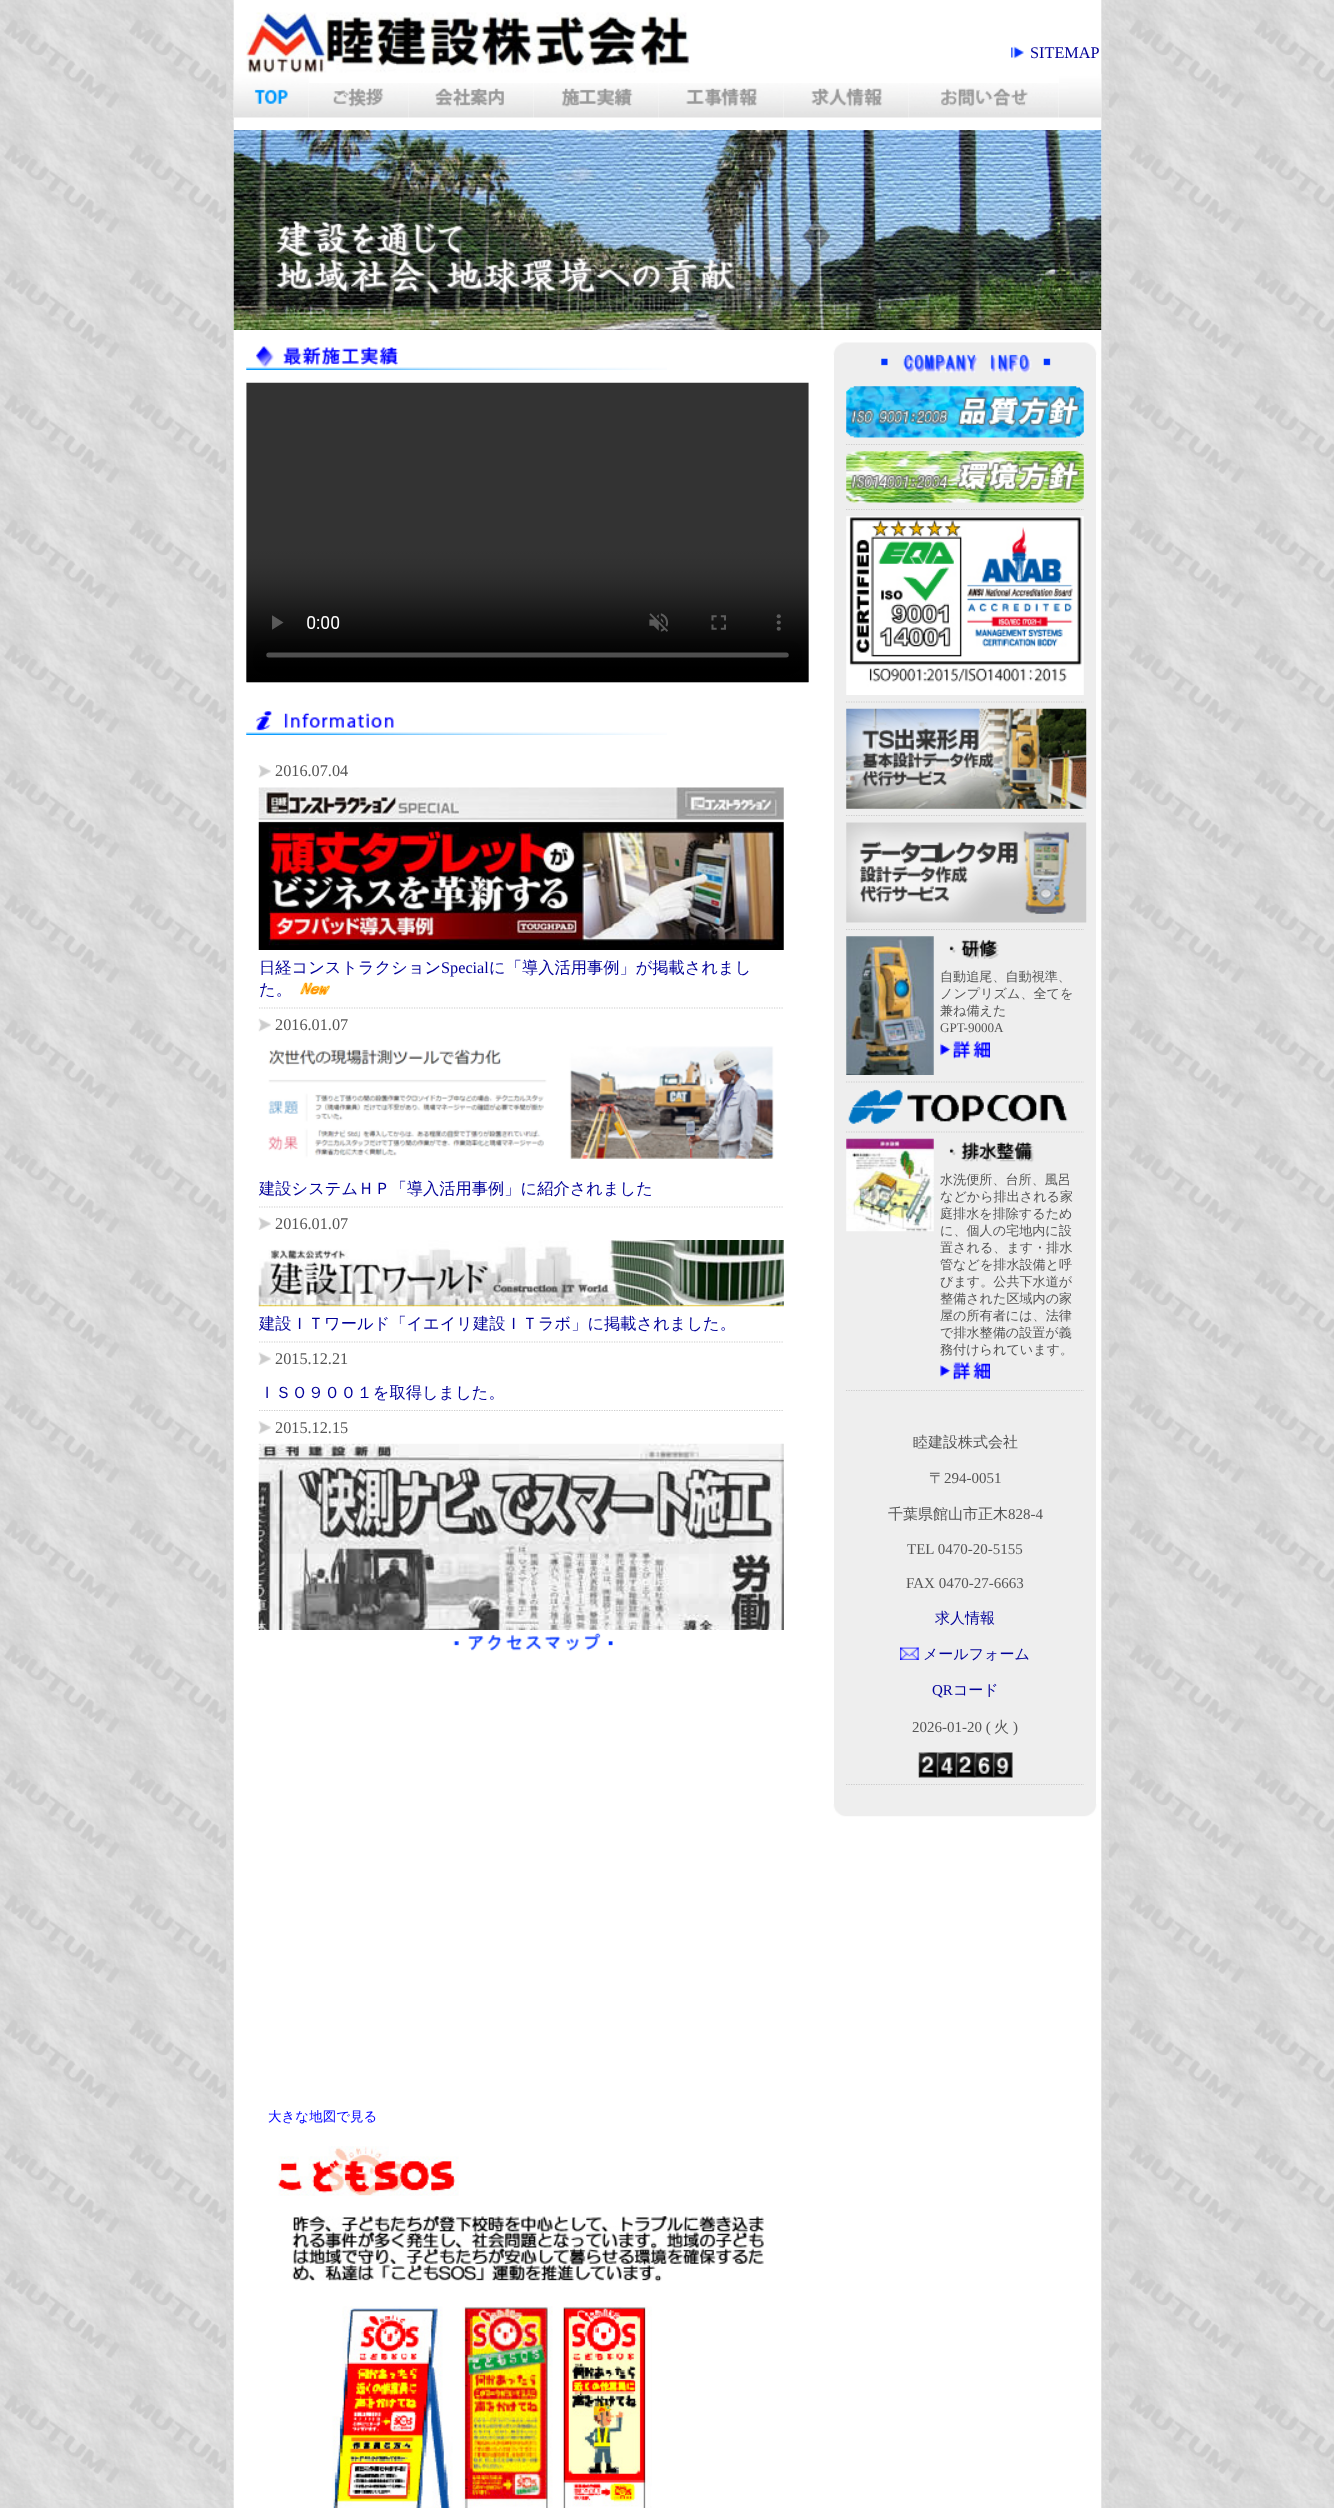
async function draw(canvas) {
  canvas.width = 1334;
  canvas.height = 2508;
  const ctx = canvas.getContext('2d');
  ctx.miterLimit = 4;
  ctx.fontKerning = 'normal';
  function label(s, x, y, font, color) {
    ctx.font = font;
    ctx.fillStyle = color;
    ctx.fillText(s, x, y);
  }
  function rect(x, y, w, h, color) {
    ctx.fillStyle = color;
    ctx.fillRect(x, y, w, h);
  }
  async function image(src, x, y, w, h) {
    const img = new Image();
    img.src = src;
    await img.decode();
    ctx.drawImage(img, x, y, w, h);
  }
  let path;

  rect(0, 0, 1334, 2508, '#fff');
  await image('assets/img1.png', 0, 0, 1334, 2508);
  await image('assets/img2.png', 226, 0, 883, 2508);
  await image('assets/img3.png', 246, 12, 444, 61);
  await image('assets/img4.png', 1011, 46, 13, 13);
  label('SITEMAP', 1030, 58, '16.25px Liberation Serif', '#009');
  await image('assets/img5.png', 233, 74, 76, 44);
  await image('assets/img6.png', 309, 83, 100, 35);
  await image('assets/img7.png', 409, 83, 125, 35);
  await image('assets/img8.png', 534, 83, 125, 35);
  await image('assets/img9.png', 659, 83, 125, 35);
  await image('assets/img10.png', 784, 83, 125, 35);
  await image('assets/img11.png', 909, 83, 150, 35);
  await image('assets/img12.png', 1059, 74, 43, 44);
  await image('assets/img13.png', 233, 130, 869, 200);
  await image('assets/img14.png', 246, 346, 421, 24);
  await image('assets/img15.png', 246, 382, 563, 301);
  await image('assets/img16.png', 246, 711, 421, 24);
  await image('assets/img17.png', 258, 765, 13, 13);
  label('2016.07.04', 275, 776, '16.25px Liberation Serif', '#555');
  await image('assets/img18.png', 258, 787, 526, 163);
  path = new Path2D('M259 1008H784');
  ctx.strokeStyle = '#ccc';
  ctx.lineWidth = 1.2;
  ctx.setLineDash([1.25, 1.25]);
  ctx.stroke(path);
  label('日経コンストラクション', 259, 973, '500 16.25px WenQuanYi Zen Hei', '#009');
  label('Special', 441, 973, '16.25px Liberation Serif', '#009');
  label('に「導入活用事例」が掲載されまし', 489, 973, '500 16.25px WenQuanYi Zen Hei', '#009');
  label('た。', 259, 995, '500 16.25px WenQuanYi Zen Hei', '#009');
  await image('assets/img19.png', 300, 982, 30, 13);
  await image('assets/img20.png', 258, 1018, 13, 14);
  label('2016.01.07', 275, 1030, '16.25px Liberation Serif', '#555');
  await image('assets/img21.png', 268, 1046, 506, 113);
  path = new Path2D('M259 1207H784');
  ctx.stroke(path);
  label('建設システムＨＰ「導入活用事例」に紹介されました', 259, 1194, '500 16.25px WenQuanYi Zen Hei', '#009');
  await image('assets/img22.png', 258, 1217, 13, 13);
  label('2016.01.07', 275, 1229, '16.25px Liberation Serif', '#555');
  await image('assets/img23.png', 258, 1240, 526, 67);
  path = new Path2D('M259 1342H784');
  ctx.stroke(path);
  label('建設ＩＴワールド「イエイリ建設ＩＴラボ」に掲載されました。', 259, 1329, '500 16.25px WenQuanYi Zen Hei', '#009');
  await image('assets/img22.png', 258, 1352, 13, 13);
  label('2015.12.21', 275, 1364, '16.25px Liberation Serif', '#555');
  path = new Path2D('M259 1410.5H784');
  ctx.stroke(path);
  label('ＩＳＯ９００１を取得しました。', 259, 1398, '500 16.25px WenQuanYi Zen Hei', '#009');
  await image('assets/img24.png', 258, 1421, 13, 13);
  label('2015.12.15', 275, 1433, '16.25px Liberation Serif', '#555');
  await image('assets/img25.png', 258, 1443, 526, 187);
  await image('assets/img26.png', 453, 1632, 160, 20);
  label('大きな地図で見る', 268, 2121, '500 13.5px WenQuanYi Zen Hei', '#00f');
  await image('assets/img27.png', 277, 2146, 182, 50);
  await image('assets/img28.png', 292, 2216, 472, 66);
  await image('assets/img29.png', 332, 2306, 320, 202);
  rect(834, 355, 262, 1449, '#eee');
  await image('assets/img30.png', 833, 1804, 264, 13);
  await image('assets/img31.png', 833, 342, 264, 13);
  await image('assets/img32.png', 881, 354, 170, 19);
  path = new Path2D('M846 444.5H1084');
  ctx.stroke(path);
  await image('assets/img33.png', 846, 386, 238, 52);
  path = new Path2D('M846 509.5H1084');
  ctx.stroke(path);
  await image('assets/img34.png', 846, 451, 238, 52);
  path = new Path2D('M846 702H1084');
  ctx.stroke(path);
  await image('assets/img35.png', 846, 516, 238, 179);
  path = new Path2D('M846 815.5H1084');
  ctx.stroke(path);
  await image('assets/img36.png', 846, 708, 241, 101);
  path = new Path2D('M846 929.5H1084');
  ctx.stroke(path);
  await image('assets/img37.png', 846, 822, 241, 101);
  path = new Path2D('M846 1082H1084');
  ctx.stroke(path);
  await image('assets/img38.png', 846, 936, 88, 139);
  await image('assets/img39.png', 949, 939, 50, 20);
  label('自動追尾、自動視準、', 940, 981, '500 13.1px WenQuanYi Zen Hei', '#555');
  label('ノンプリズム、全てを', 940, 998, '500 13.1px WenQuanYi Zen Hei', '#555');
  label('兼ね備えた', 940, 1015, '500 13.1px WenQuanYi Zen Hei', '#555');
  label('GPT-9000A', 940, 1032, '13.1px Liberation Serif', '#555');
  await image('assets/img40.png', 940, 1041, 50, 18);
  path = new Path2D('M846 1132H1084');
  ctx.stroke(path);
  await image('assets/img41.png', 848, 1089, 220, 35);
  path = new Path2D('M846 1390.5H1084');
  ctx.stroke(path);
  await image('assets/img42.png', 846, 1138, 88, 94);
  await image('assets/img43.png', 949, 1142, 85, 21);
  label('水洗便所、台所、風呂', 940, 1184, '500 13.1px WenQuanYi Zen Hei', '#555');
  label('などから排出される家', 940, 1201, '500 13.1px WenQuanYi Zen Hei', '#555');
  label('庭排水を排除するため', 940, 1218, '500 13.1px WenQuanYi Zen Hei', '#555');
  label('に、個人の宅地内に設', 940, 1235, '500 13.1px WenQuanYi Zen Hei', '#555');
  label('置される、ます・排水', 940, 1252, '500 13.1px WenQuanYi Zen Hei', '#555');
  label('管などを排水設備と呼', 940, 1269, '500 13.1px WenQuanYi Zen Hei', '#555');
  label('びます。公共下水道が', 940, 1286, '500 13.1px WenQuanYi Zen Hei', '#555');
  label('整備された区域内の家', 940, 1303, '500 13.1px WenQuanYi Zen Hei', '#555');
  label('屋の所有者には、法律', 940, 1320, '500 13.1px WenQuanYi Zen Hei', '#555');
  label('で排水整備の設置が義', 940, 1337, '500 13.1px WenQuanYi Zen Hei', '#555');
  label('務付けられています。', 940, 1354, '500 13.1px WenQuanYi Zen Hei', '#555');
  await image('assets/img44.png', 940, 1362, 50, 19);
  path = new Path2D('M846 1784.5H1084');
  ctx.stroke(path);
  label('睦建設株式会社', 913, 1447, '500 15px WenQuanYi Zen Hei', '#555');
  label('〒', 929, 1483, '500 15px WenQuanYi Zen Hei', '#555');
  label('294-0051', 944, 1483, '15px Liberation Serif', '#555');
  label('千葉県館山市正木', 888, 1519, '500 15px WenQuanYi Zen Hei', '#555');
  label('828-4', 1008, 1519, '15px Liberation Serif', '#555');
  label('TEL 0470-20-5155', 907, 1554, '15px Liberation Serif', '#555');
  label('FAX 0470-27-6663', 906, 1588, '15px Liberation Serif', '#555');
  label('求人情報', 935, 1623, '500 15px WenQuanYi Zen Hei', '#009');
  await image('assets/img45.png', 900, 1647, 19, 13);
  label('メールフォーム', 923, 1659, '500 15px WenQuanYi Zen Hei', '#009');
  label('QR', 932, 1695, '15px Liberation Serif', '#009');
  label('コード', 953, 1695, '500 15px WenQuanYi Zen Hei', '#009');
  label('2026-01-20 (', 912, 1732, '15px Liberation Serif', '#555');
  label('火', 994, 1732, '500 15px WenQuanYi Zen Hei', '#555');
  label(')', 1013, 1732, '15px Liberation Serif', '#555');
  await image('assets/img46.png', 918, 1752, 20, 26);
  await image('assets/img47.png', 937, 1752, 20, 26);
  await image('assets/img48.png', 956, 1752, 19, 26);
  await image('assets/img49.png', 975, 1752, 19, 26);
  await image('assets/img50.png', 993, 1752, 20, 26);
}

draw(document.querySelector('canvas'));
